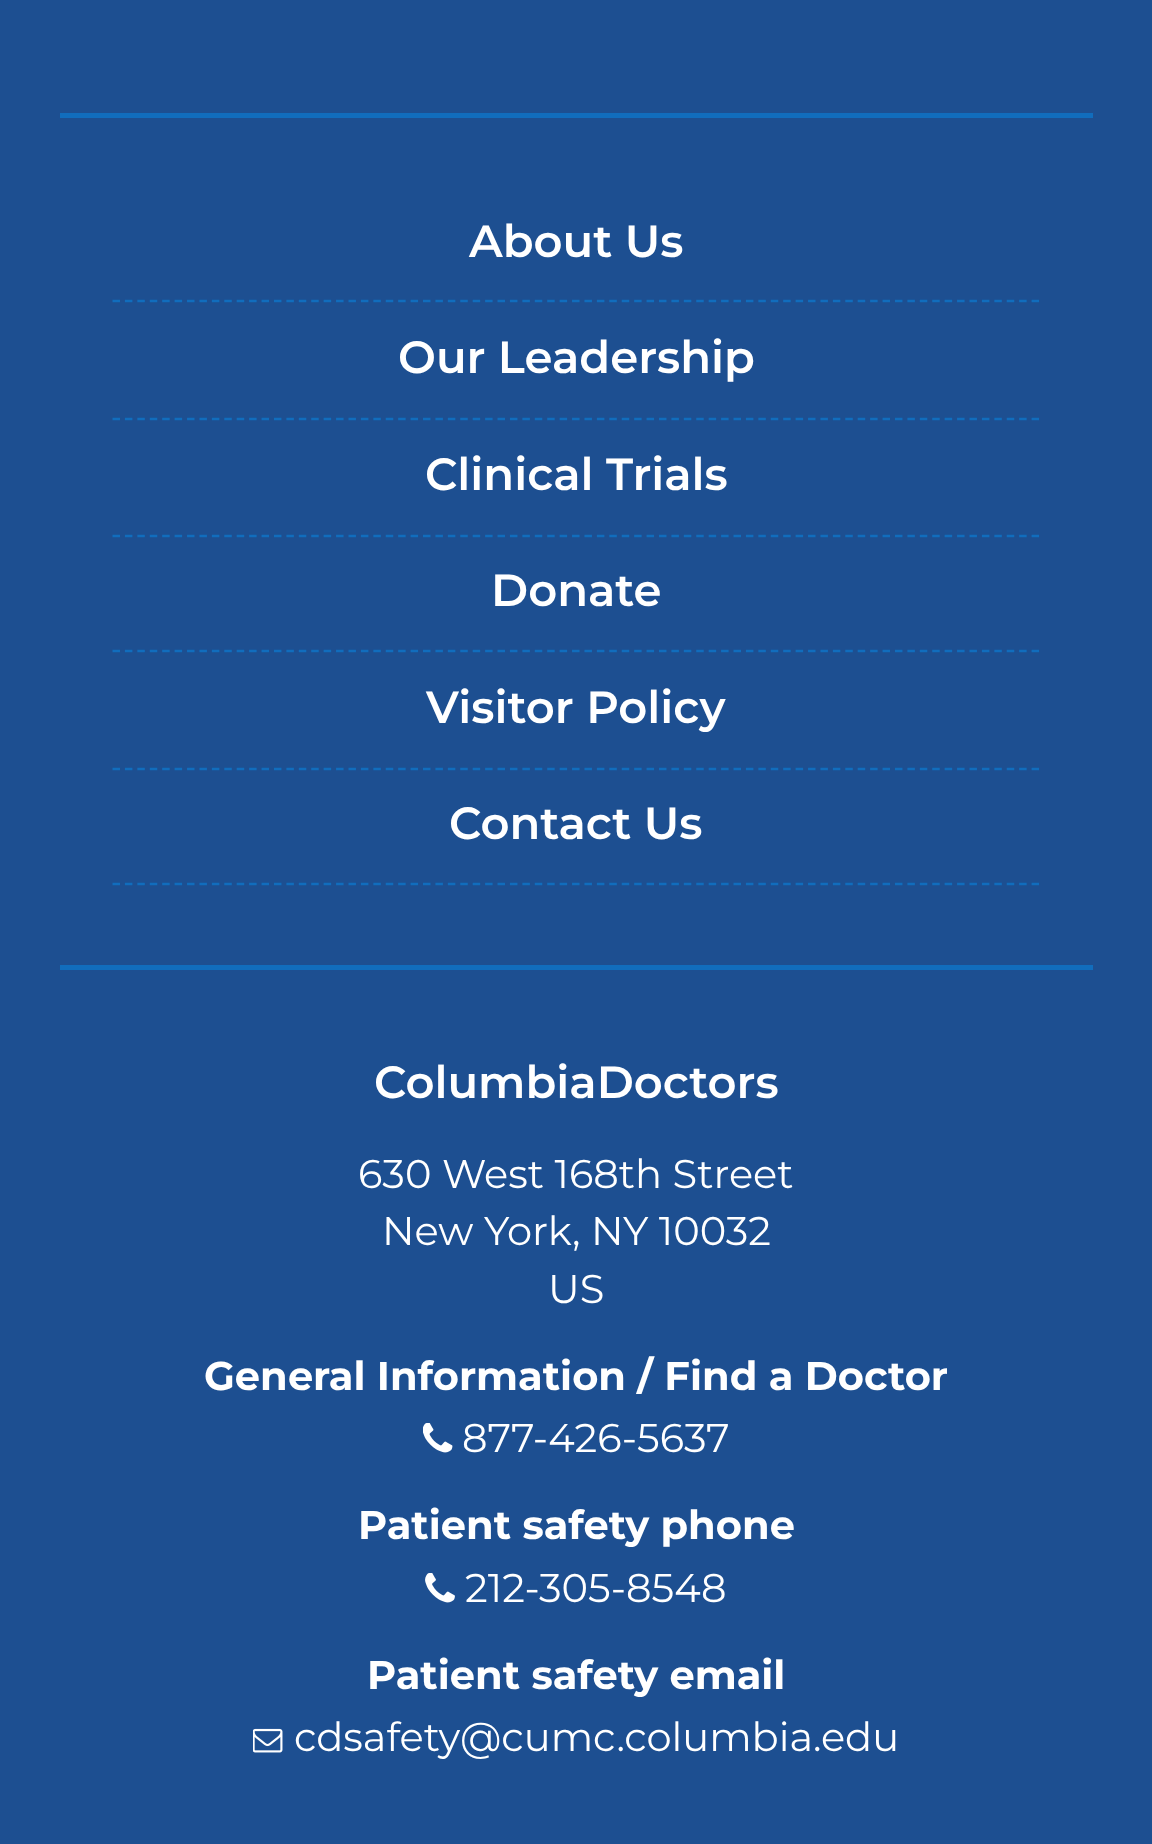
async function draw(canvas) {
  canvas.width = 1152;
  canvas.height = 1844;
  const ctx = canvas.getContext('2d');
  ctx.miterLimit = 4;
  ctx.fontKerning = 'normal';
  function label(s, x, y, font, color) {
    ctx.font = font;
    ctx.fillStyle = color;
    ctx.fillText(s, x, y);
  }
  function rect(x, y, w, h, color) {
    ctx.fillStyle = color;
    ctx.fillRect(x, y, w, h);
  }
  async function image(src, x, y, w, h) {
    const img = new Image();
    img.src = src;
    await img.decode();
    ctx.drawImage(img, x, y, w, h);
  }
  let path;

  rect(0, 0, 1152, 1844, '#1d4f91');
  rect(60, 113, 1033, 5, '#116dbd');
  path = new Path2D('M112.5 301H1040');
  ctx.strokeStyle = '#116dbd';
  ctx.lineWidth = 2.5;
  ctx.setLineDash([7.5, 4.92]);
  ctx.stroke(path);
  label('About Us', 469, 257, '600 45px Montserrat', '#fff');
  path = new Path2D('M112.5 419H1040');
  ctx.stroke(path);
  label('Our Leadership', 398, 373, '600 45px Montserrat', '#fff');
  path = new Path2D('M112.5 536H1040');
  ctx.stroke(path);
  label('Clinical Trials', 425, 490, '600 45px Montserrat', '#fff');
  path = new Path2D('M112.5 651H1040');
  ctx.stroke(path);
  label('Donate', 491, 606, '600 45px Montserrat', '#fff');
  path = new Path2D('M112.5 769H1040');
  ctx.stroke(path);
  label('Visitor Policy', 426, 723, '600 45px Montserrat', '#fff');
  path = new Path2D('M112.5 884H1040');
  ctx.stroke(path);
  label('Contact Us', 449, 839, '600 45px Montserrat', '#fff');
  rect(60, 965, 1033, 5, '#116dbd');
  label('ColumbiaDoctors', 374, 1098, '600 45px Montserrat', '#fff');
  label('630 West 168th Street', 358, 1188, '40px Montserrat', '#fff');
  label('New York, NY 10032', 382, 1245, '40px Montserrat', '#fff');
  label('US', 548, 1303, '40px Montserrat', '#fff');
  label('General Information / Find a Doctor', 204, 1390, 'bold 40px Montserrat', '#fff');
  await image('assets/img1.png', 423, 1423, 30, 30);
  label('877-426-5637', 462, 1452, '40px Montserrat', '#fff');
  label('Patient safety phone', 358, 1539, 'bold 40px Montserrat', '#fff');
  await image('assets/img2.png', 425, 1573, 30, 30);
  label('212-305-8548', 465, 1602, '40px Montserrat', '#fff');
  label('Patient safety email', 367, 1689, 'bold 40px Montserrat', '#fff');
  await image('assets/img3.png', 253, 1728, 30, 25);
  label('cdsafety@cumc.columbia.edu', 294, 1751, '40px Montserrat', '#fff');
}

draw(document.querySelector('canvas'));
